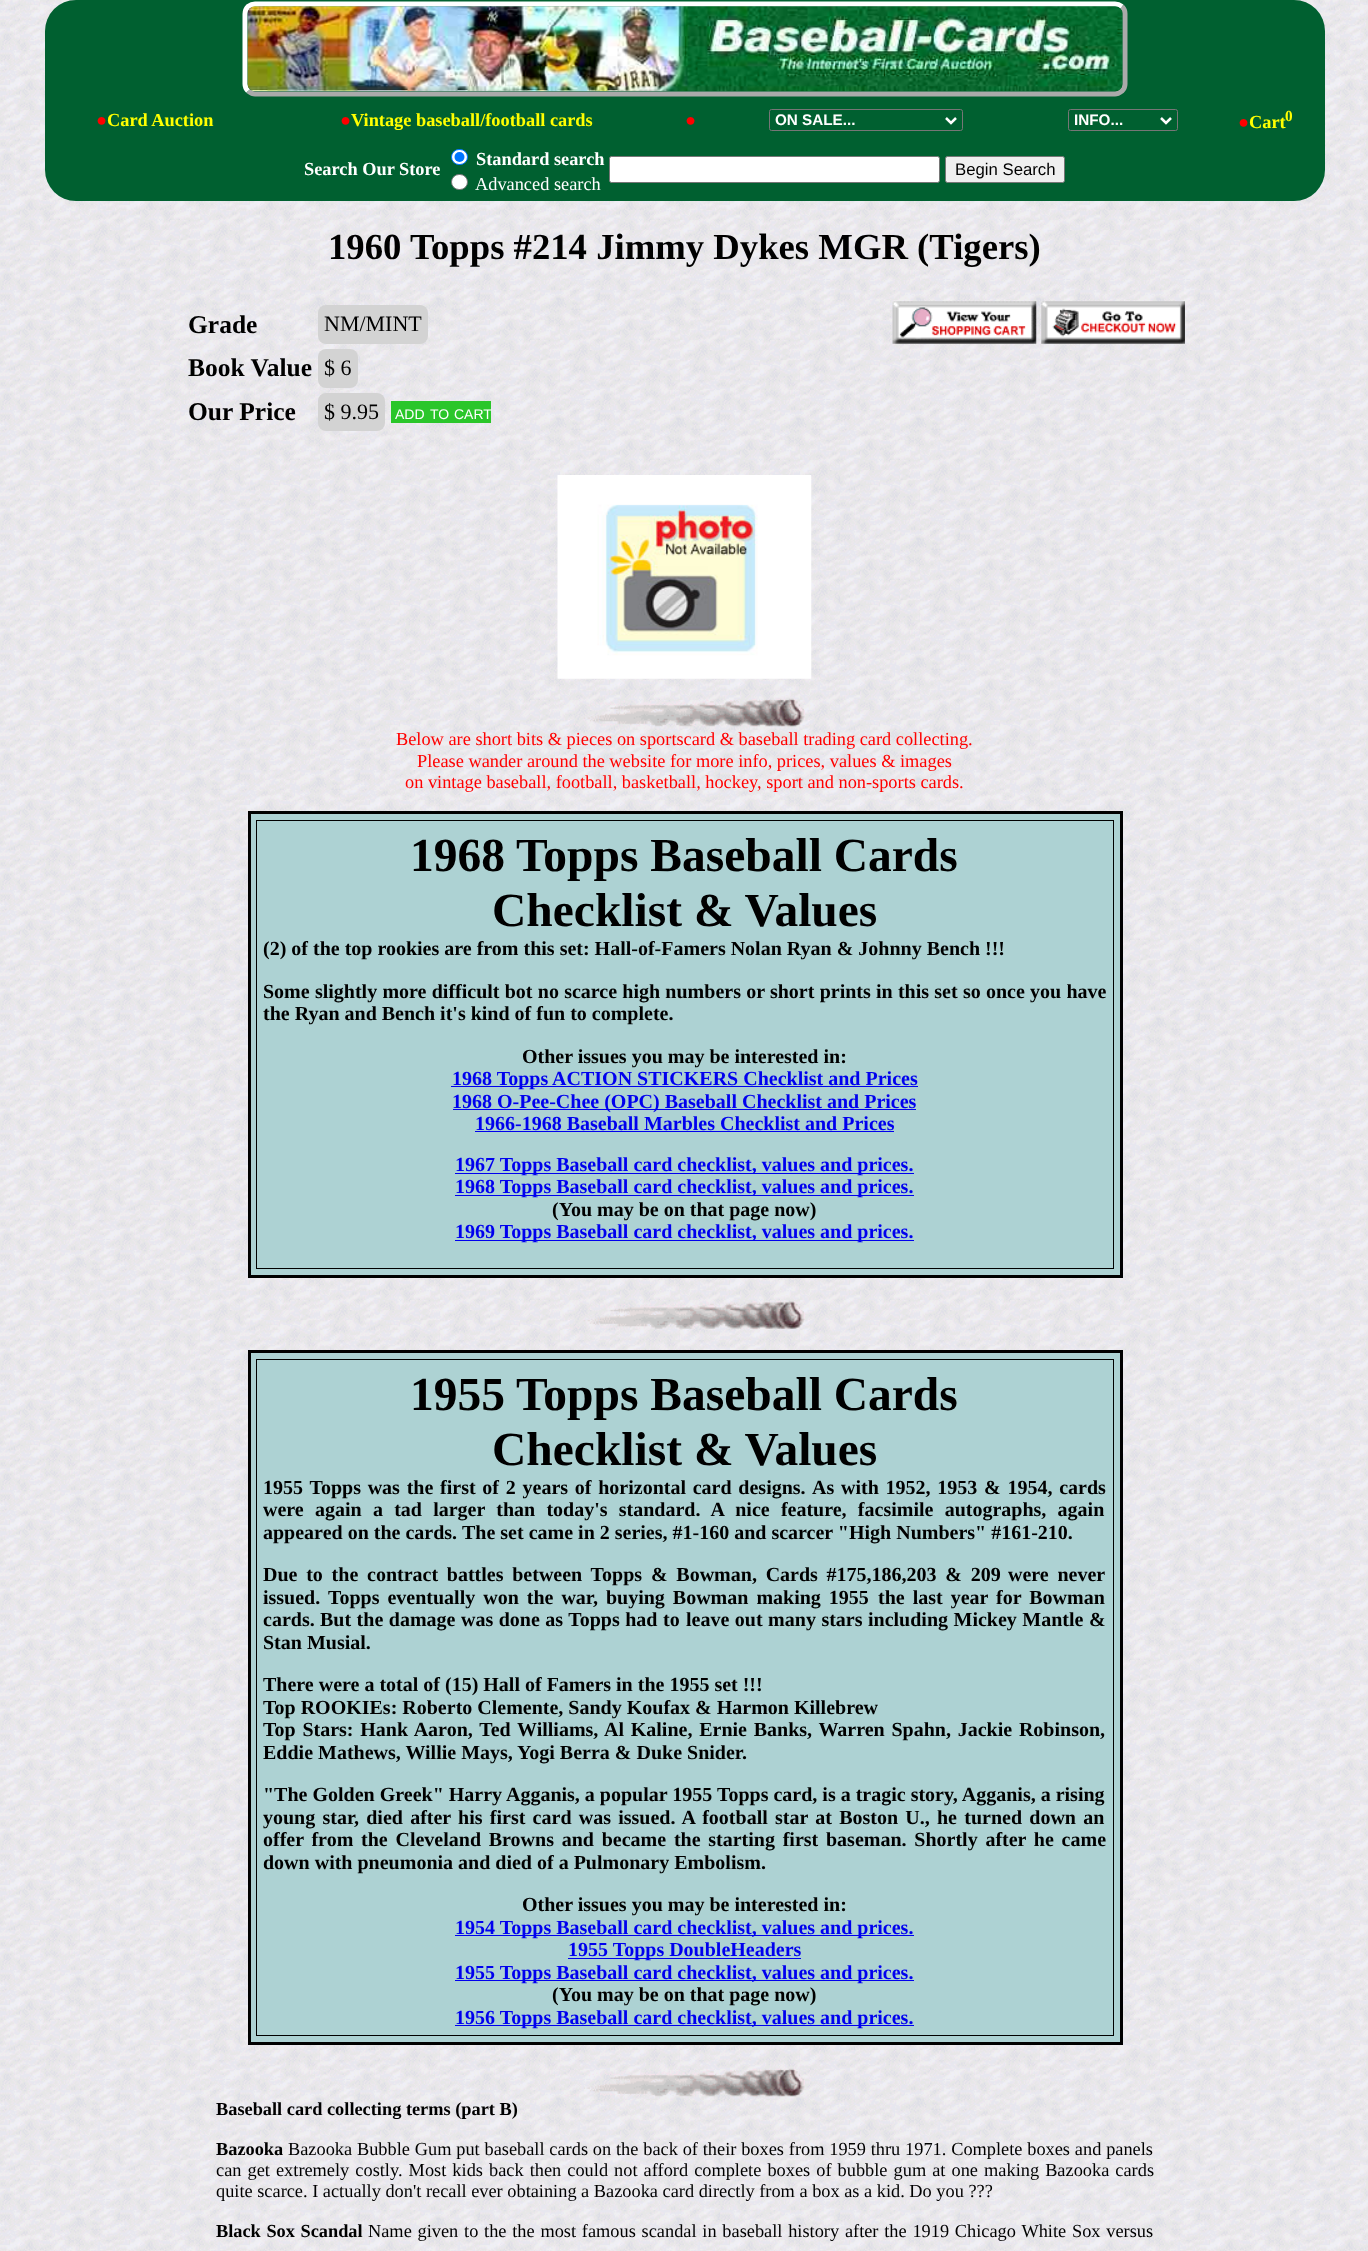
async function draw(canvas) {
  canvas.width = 1368;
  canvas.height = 2251;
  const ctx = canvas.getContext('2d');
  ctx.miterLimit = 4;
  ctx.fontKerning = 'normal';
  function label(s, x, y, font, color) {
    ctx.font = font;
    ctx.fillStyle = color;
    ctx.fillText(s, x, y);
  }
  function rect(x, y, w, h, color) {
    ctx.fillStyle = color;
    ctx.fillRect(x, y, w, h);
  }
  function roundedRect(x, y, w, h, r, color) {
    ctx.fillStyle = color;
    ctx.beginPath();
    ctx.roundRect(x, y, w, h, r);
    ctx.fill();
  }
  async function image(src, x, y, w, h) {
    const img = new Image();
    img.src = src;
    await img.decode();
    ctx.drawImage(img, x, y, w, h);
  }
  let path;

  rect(0, 0, 1368, 2251, '#fff');
  await image('assets/img1.png', 0, 0, 1368, 2251);
  roundedRect(45, 0, 1280, 201, 31, '#006030');
  path = new Path2D('M1122 6.5C1124 8.5 1125 11 1125 13.5V84C1125 86.5 1124 89 1122 91C1120 92.5 1117.5 94 1115 94H255C252.5 94 250 92.5 248 91');
  ctx.strokeStyle = '#aaa';
  ctx.lineWidth = 5;
  ctx.stroke(path);
  path = new Path2D('M248 91C246 89 245 86.5 245 84V14C245 11 246 8.5 248 6.5C250 5 252.5 4 255 4H1115C1117.5 4 1120 5 1122 6.5');
  ctx.strokeStyle = '#fff';
  ctx.stroke(path);
  await image('assets/img2.png', 247, 6, 876, 86);
  label('●', 96, 126, 'bold 18.33px Liberation Serif', '#f00');
  label('Card Auction', 107, 126, 'bold 18.33px Liberation Serif', '#ff0');
  label('●', 340, 126, 'bold 18.33px Liberation Serif', '#f00');
  label('Vintage baseball/football cards', 351, 126, 'bold 18.33px Liberation Serif', '#ff0');
  label('●', 685, 126, 'bold 18.33px Liberation Serif', '#f00');
  ctx.beginPath();
  ctx.roundRect(769.5, 109.5, 193, 21, 2);
  ctx.strokeStyle = '#767676';
  ctx.lineWidth = 1;
  ctx.stroke();
  path = new Path2D('M946 118L951 123L956 118');
  ctx.strokeStyle = '#fff';
  ctx.lineWidth = 2.5;
  ctx.stroke(path);
  label('ON SALE...', 775, 125, 'bold 15.25px Liberation Sans', '#fff');
  ctx.beginPath();
  ctx.roundRect(1068.5, 109.5, 109, 21, 2);
  ctx.strokeStyle = '#767676';
  ctx.lineWidth = 1;
  ctx.stroke();
  path = new Path2D('M1161 118L1166 123L1171 118');
  ctx.strokeStyle = '#fff';
  ctx.lineWidth = 2.5;
  ctx.stroke(path);
  label('INFO...', 1074, 125, 'bold 15.25px Liberation Sans', '#fff');
  label('●', 1238, 128, 'bold 18.33px Liberation Serif', '#f00');
  label('Cart', 1249, 128, 'bold 18.33px Liberation Serif', '#ff0');
  label('0', 1285, 121, 'bold 15.25px Liberation Serif', '#ff0');
  label('Search Our Store', 304, 175, 'bold 18.33px Liberation Serif', '#fff');
  ctx.beginPath();
  ctx.roundRect(451.5, 149.5, 16, 15, 7.5);
  ctx.fill();
  ctx.strokeStyle = '#0075ff';
  ctx.lineWidth = 1;
  ctx.stroke();
  ctx.fillStyle = '#0075ff';
  ctx.beginPath();
  ctx.arc(459.5, 157, 5, 0, 2 * Math.PI);
  ctx.fill();
  label('Standard search', 476, 165, 'bold 18.33px Liberation Serif', '#fff');
  ctx.beginPath();
  ctx.roundRect(451.5, 174.5, 16, 15, 7.5);
  ctx.fill();
  ctx.strokeStyle = '#767676';
  ctx.stroke();
  label('Advanced search', 475, 190, '18.33px Liberation Serif', '#fff');
  ctx.beginPath();
  ctx.roundRect(609.5, 156.5, 330, 26, 2);
  ctx.fill();
  ctx.stroke();
  ctx.fillStyle = '#efefef';
  ctx.beginPath();
  ctx.roundRect(945.5, 156.5, 119, 26, 2);
  ctx.fill();
  ctx.stroke();
  label('Begin Search', 955, 175, '16.75px Liberation Sans', '#000');
  label('1960 Topps #214 Jimmy Dykes MGR (Tigers)', 328, 259, 'bold 36.7px Liberation Serif', '#000');
  label('Grade', 188, 333, 'bold 25.5px Liberation Serif', '#000');
  roundedRect(318, 305, 110, 39, 8, '#d3d3d3');
  label('NM/MINT', 324, 331, '22px Liberation Serif', '#000');
  label('Book Value', 188, 376, 'bold 25.5px Liberation Serif', '#000');
  roundedRect(318, 349, 40, 39, 8, '#d3d3d3');
  label('$ 6', 324, 375, '22px Liberation Serif', '#000');
  label('Our Price', 188, 420, 'bold 25.5px Liberation Serif', '#000');
  roundedRect(318, 393, 67, 38, 8, '#d3d3d3');
  label('$ 9.95', 324, 419, '22px Liberation Serif', '#000');
  rect(391, 401, 100, 22, '#2ac62a');
  label('ADD', 395, 419, '14px Liberation Sans', '#fff');
  label('TO', 430, 419, '14px Liberation Sans', '#fff');
  label('CART', 454, 419, '14px Liberation Sans', '#fff');
  await image('assets/img3.png', 892, 301, 145, 43);
  await image('assets/img4.png', 1041, 301, 144, 43);
  await image('assets/img5.png', 557, 475, 255, 204);
  await image('assets/img6.png', 568, 698, 237, 29);
  label('Below are short bits & pieces on sportscard & baseball trading card collecting.', 396, 745, '18.33px Liberation Serif', '#f00');
  label('Please wander around the website for more info, prices, values & images', 417, 767, '18.33px Liberation Serif', '#f00');
  label('on vintage baseball, football, basketball, hockey, sport and non-sports cards.', 405, 788, '18.33px Liberation Serif', '#f00');
  ctx.fillStyle = '#add2d3';
  ctx.beginPath();
  ctx.rect(249.5, 812.5, 872, 464);
  ctx.fill();
  ctx.strokeStyle = '#000';
  ctx.lineWidth = 3;
  ctx.stroke();
  ctx.lineWidth = 1;
  ctx.strokeRect(256.5, 820.5, 857, 448);
  label('1968 Topps Baseball Cards', 410, 871, 'bold 47.5px Liberation Serif', '#000');
  label('Checklist & Values', 492, 926, 'bold 47.5px Liberation Serif', '#000');
  label('(2) of the top rookies are from this set: Hall-of-Famers Nolan Ryan & Johnny Bench !!!', 263, 955, 'bold 20px Liberation Serif', '#000');
  ctx.wordSpacing = '0.25px';
  label('Some slightly more difficult bot no scarce high numbers or short prints in this set so once you have', 263, 998, 'bold 20px Liberation Serif', '#000');
  ctx.wordSpacing = '0px';
  label('the Ryan and Bench it\'s kind of fun to complete.', 263, 1020, 'bold 20px Liberation Serif', '#000');
  label('Other issues you may be interested in:', 522, 1063, 'bold 20px Liberation Serif', '#000');
  rect(451, 1086, 467, 1, '#00e');
  label('1968 Topps ACTION STICKERS Checklist and Prices', 452, 1085, 'bold 20px Liberation Serif', '#00e');
  rect(453, 1109, 463, 1, '#00e');
  label('1968 O-Pee-Chee (OPC) Baseball Checklist and Prices', 452, 1108, 'bold 20px Liberation Serif', '#00e');
  label('1966-1968 Baseball Marbles Checklist and Prices', 475, 1130, 'bold 20px Liberation Serif', '#00e');
  rect(475, 1131, 419, 1, '#00e');
  rect(455, 1173, 459, 1, '#00e');
  label('1967 Topps Baseball card checklist, values and prices.', 455, 1171, 'bold 20px Liberation Serif', '#00e');
  rect(455, 1195, 459, 1, '#00e');
  label('1968 Topps Baseball card checklist, values and prices.', 455, 1193, 'bold 20px Liberation Serif', '#00e');
  label('(You may be on that page now)', 552, 1216, 'bold 20px Liberation Serif', '#000');
  rect(455, 1240, 459, 1, '#00e');
  label('1969 Topps Baseball card checklist, values and prices.', 455, 1238, 'bold 20px Liberation Serif', '#00e');
  await image('assets/img7.png', 565, 1301, 240, 28);
  ctx.fillStyle = '#add2d3';
  ctx.beginPath();
  ctx.rect(249.5, 1351.5, 872, 692);
  ctx.fill();
  ctx.lineWidth = 3;
  ctx.stroke();
  ctx.lineWidth = 1;
  ctx.strokeRect(256.5, 1359.5, 857, 676);
  label('1955 Topps Baseball Cards', 410, 1410, 'bold 47.5px Liberation Serif', '#000');
  label('Checklist & Values', 492, 1465, 'bold 47.5px Liberation Serif', '#000');
  ctx.wordSpacing = '1.75px';
  label('1955 Topps was the first of 2 years of horizontal card designs.', 263, 1494, 'bold 20px Liberation Serif', '#000');
  label('As with 1952, 1953 & 1954, cards', 812, 1494, 'bold 20px Liberation Serif', '#000');
  ctx.wordSpacing = '6.25px';
  label('were again a tad larger than today\'s standard. A nice feature, facsimile autographs, again', 263, 1516, 'bold 20px Liberation Serif', '#000');
  ctx.wordSpacing = '0px';
  label('appeared on the cards.', 263, 1539, 'bold 20px Liberation Serif', '#000');
  label('The set came in 2 series, #1-160 and scarcer "High Numbers" #161-210.', 462, 1539, 'bold 20px Liberation Serif', '#000');
  ctx.wordSpacing = '3.75px';
  label('Due to the contract battles between Topps & Bowman, Cards #175,186,203 & 209', 263, 1581, 'bold 20px Liberation Serif', '#000');
  label('were never', 1008, 1581, 'bold 20px Liberation Serif', '#000');
  ctx.wordSpacing = '3px';
  label('issued. Topps eventually won the war, buying Bowman making 1955', 263, 1604, 'bold 20px Liberation Serif', '#000');
  label('the last year for Bowman', 878, 1604, 'bold 20px Liberation Serif', '#000');
  ctx.wordSpacing = '0px';
  label('cards.', 263, 1626, 'bold 20px Liberation Serif', '#000');
  ctx.wordSpacing = '0.5px';
  label('But the damage was done as Topps had to', 320, 1626, 'bold 20px Liberation Serif', '#000');
  label('leave out many stars including Mickey Mantle &', 686, 1626, 'bold 20px Liberation Serif', '#000');
  ctx.wordSpacing = '0px';
  label('Stan Musial.', 263, 1649, 'bold 20px Liberation Serif', '#000');
  label('There were a total of (15) Hall of Famers in the 1955 set !!!', 263, 1691, 'bold 20px Liberation Serif', '#000');
  label('Top ROOKIEs: Roberto Clemente, Sandy Koufax & Harmon Killebrew', 263, 1714, 'bold 20px Liberation Serif', '#000');
  ctx.wordSpacing = '1.75px';
  label('Top Stars: Hank Aaron, Ted Williams, Al Kaline, Ernie Banks, Warren Spahn, Jackie Robinson,', 263, 1736, 'bold 20px Liberation Serif', '#000');
  ctx.wordSpacing = '0px';
  label('Eddie Mathews, Willie Mays, Yogi Berra & Duke Snider.', 263, 1759, 'bold 20px Liberation Serif', '#000');
  label('"The Golden Greek" Harry Agganis, a popular 1955 Topps card, is a tragic story, Agganis, a rising', 263, 1801, 'bold 20px Liberation Serif', '#000');
  ctx.wordSpacing = '2.25px';
  label('young star, died after his first card was issued. A football star at Boston U., he turned down an', 263, 1824, 'bold 20px Liberation Serif', '#000');
  ctx.wordSpacing = '2.75px';
  label('offer from the Cleveland Browns and became the starting first baseman. Shortly after he came', 263, 1846, 'bold 20px Liberation Serif', '#000');
  ctx.wordSpacing = '0px';
  label('down with pneumonia and died of a Pulmonary Embolism.', 263, 1869, 'bold 20px Liberation Serif', '#000');
  label('Other issues you may be interested in:', 522, 1911, 'bold 20px Liberation Serif', '#000');
  rect(455, 1935, 459, 1, '#00e');
  label('1954 Topps Baseball card checklist, values and prices.', 455, 1934, 'bold 20px Liberation Serif', '#00e');
  rect(568, 1958, 233, 1, '#00e');
  label('1955 Topps DoubleHeaders', 568, 1956, 'bold 20px Liberation Serif', '#00e');
  rect(455, 1980, 459, 1, '#00e');
  label('1955 Topps Baseball card checklist, values and prices.', 455, 1979, 'bold 20px Liberation Serif', '#00e');
  label('(You may be on that page now)', 552, 2001, 'bold 20px Liberation Serif', '#000');
  rect(455, 2025, 459, 1, '#00e');
  label('1956 Topps Baseball card checklist, values and prices.', 455, 2024, 'bold 20px Liberation Serif', '#00e');
  await image('assets/img8.png', 565, 2068, 240, 29);
  label('Baseball card collecting terms (part B)', 216, 2115, 'bold 18.33px Liberation Serif', '#000');
  label('Bazooka', 216, 2155, 'bold 18.33px Liberation Serif', '#000');
  ctx.wordSpacing = '0.25px';
  label('Bazooka Bubble Gum put baseball cards on the back of their boxes from 1959 thru 1971. Complete boxes and panels', 288, 2155, '18.33px Liberation Serif', '#000');
  ctx.wordSpacing = '1.5px';
  label('can get extremely costly. Most kids back then could not afford complete boxes of bubble gum at one making Bazooka cards', 216, 2176, '18.33px Liberation Serif', '#000');
  ctx.wordSpacing = '0px';
  label('quite scarce. I actually don\'t recall ever obtaining a Bazooka card directly from a box as a kid. Do you ???', 216, 2197, '18.33px Liberation Serif', '#000');
  ctx.wordSpacing = '1px';
  label('Black Sox Scandal', 216, 2237, 'bold 18.33px Liberation Serif', '#000');
  ctx.wordSpacing = '1.2px';
  label('Name given to the the most famous scandal in baseball history after the 1919 Chicago White Sox versus', 368, 2237, '18.33px Liberation Serif', '#000');
}

draw(document.querySelector('canvas'));
